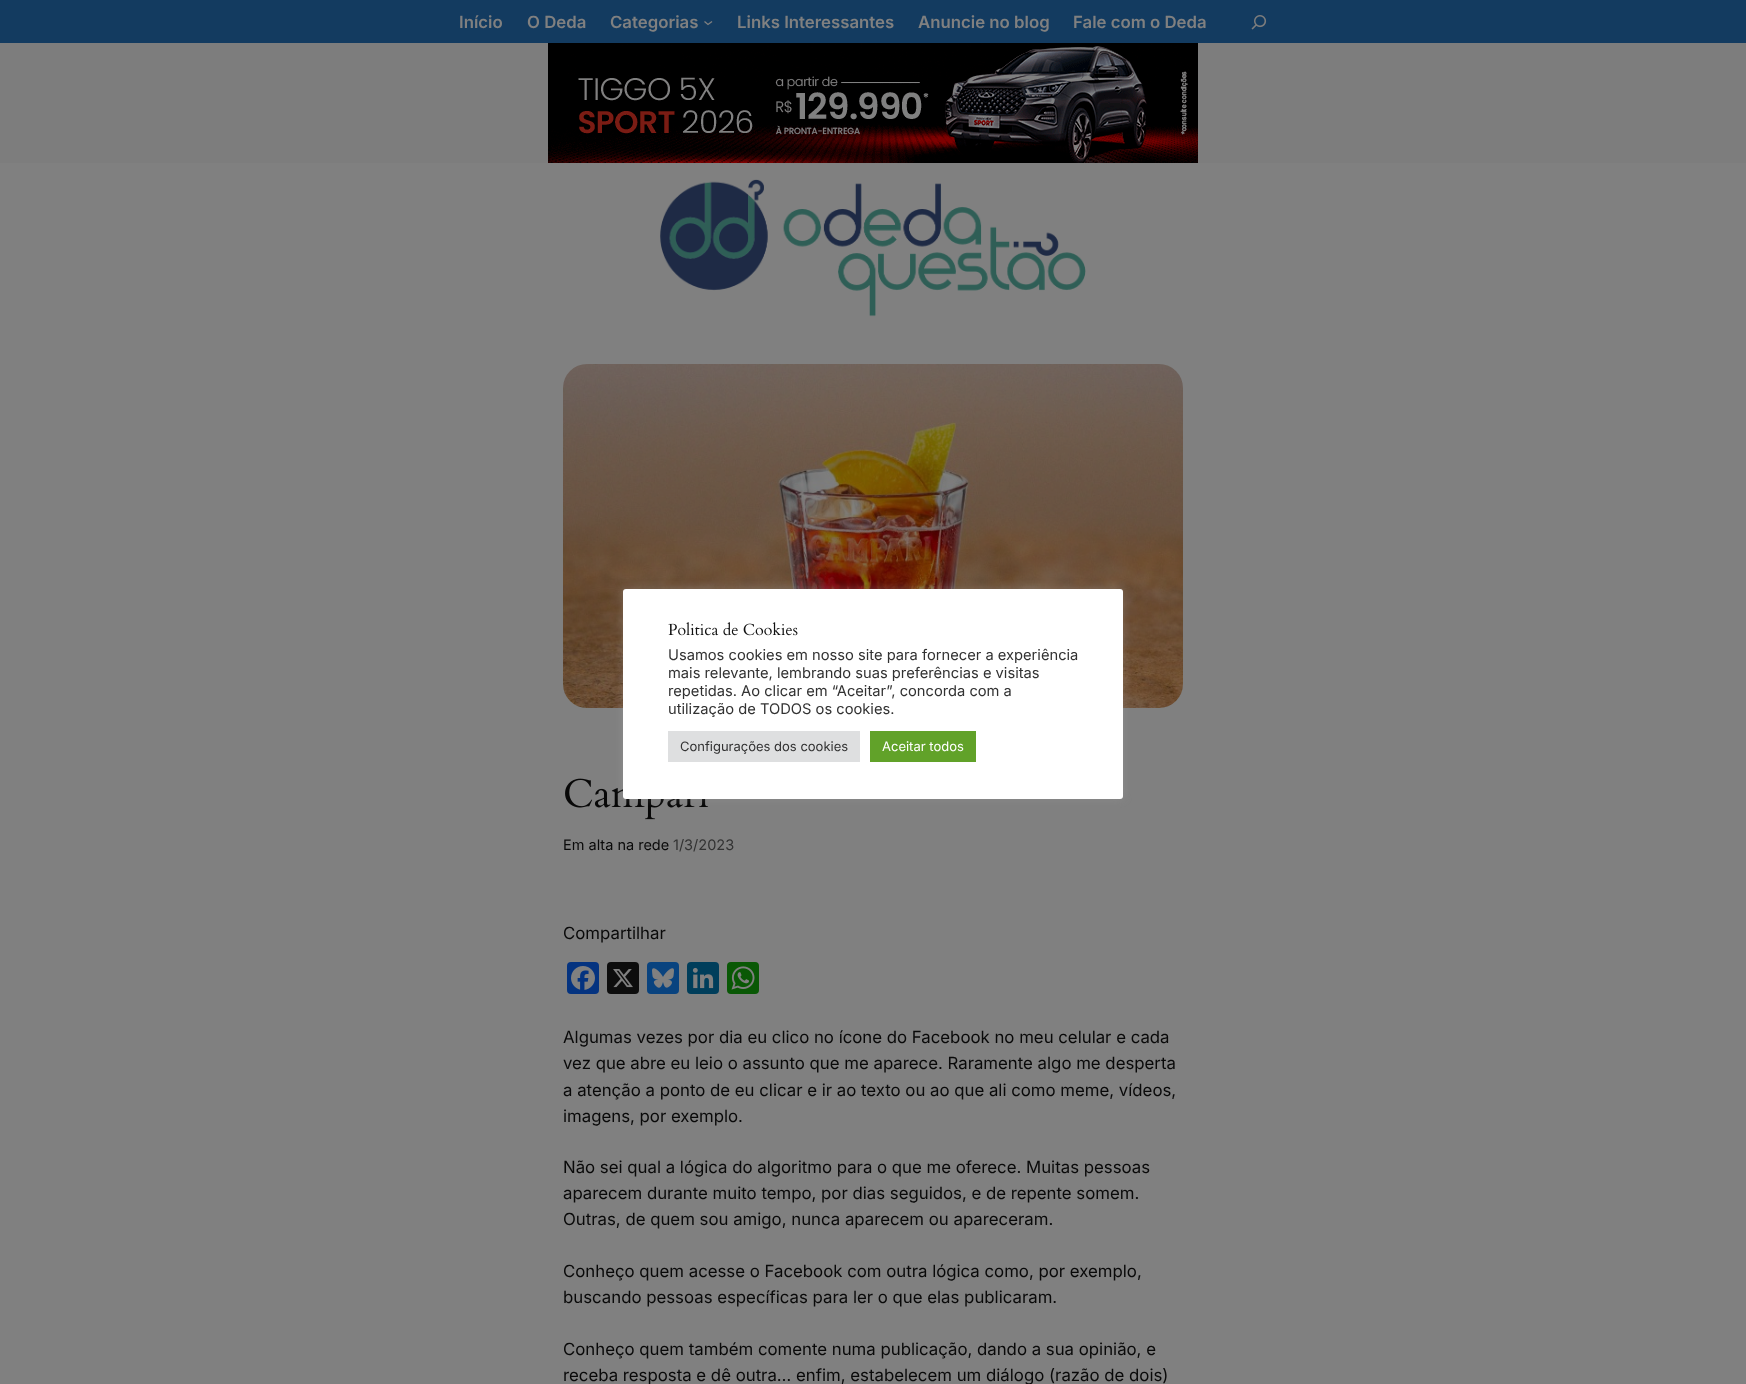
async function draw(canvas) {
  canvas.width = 1746;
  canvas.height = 1384;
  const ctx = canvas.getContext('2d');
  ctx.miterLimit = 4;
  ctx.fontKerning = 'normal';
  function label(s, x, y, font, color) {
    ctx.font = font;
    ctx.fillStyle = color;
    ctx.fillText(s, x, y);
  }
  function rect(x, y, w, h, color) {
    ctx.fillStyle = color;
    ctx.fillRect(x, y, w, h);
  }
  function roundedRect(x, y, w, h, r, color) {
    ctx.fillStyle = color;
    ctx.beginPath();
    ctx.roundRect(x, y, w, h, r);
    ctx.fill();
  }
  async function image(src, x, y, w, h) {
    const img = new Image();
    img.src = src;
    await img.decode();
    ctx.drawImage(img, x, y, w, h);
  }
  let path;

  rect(0, 0, 1746, 1384, '#808080');
  rect(0, 0, 1746, 43, '#133b60');
  label('Início', 459, 28, '600 16.8px Inter', '#808080');
  label('O Deda', 527, 28, '600 16.8px Inter', '#808080');
  label('Categorias', 610, 28, '600 16.8px Inter', '#808080');
  path = new Path2D('M704.5 21.5L708 24.5L712 21.5');
  ctx.strokeStyle = '#808080';
  ctx.lineWidth = 1.3;
  ctx.stroke(path);
  label('Links Interessantes', 737, 28, '600 16.8px Inter', '#808080');
  label('Anuncie no blog', 918, 28, '600 16.8px Inter', '#808080');
  label('Fale com o Deda', 1073, 28, '600 16.8px Inter', '#808080');
  await image('assets/img1.png', 1251, 15, 16, 15);
  rect(0, 43, 1746, 120, '#7d7d7d');
  await image('assets/img2.png', 548, 43, 650, 120);
  await image('assets/img3.png', 660, 179, 426, 138);
  await image('assets/img4.png', 563, 364, 620, 344);
  await image('assets/img5.png', 565, 778, 144, 42);
  label('Em alta na rede', 563, 850, '14.5px Inter', '#090909');
  label('1/3/2023', 673, 850, '14.5px Inter', '#323232');
  label('Compartilhar', 563, 939, '16.8px Inter', '#090909');
  roundedRect(567, 962, 32, 32, 4, '#043380');
  await image('assets/img6.png', 571, 966, 24, 24);
  roundedRect(607, 962, 32, 32, 4, '#0d0d0d');
  await image('assets/img7.png', 613, 969, 20, 19);
  roundedRect(647, 962, 32, 32, 4, '#09437f');
  await image('assets/img8.png', 652, 968, 22, 20);
  roundedRect(687, 962, 32, 32, 4, '#003e5b');
  await image('assets/img9.png', 692, 967, 22, 22);
  roundedRect(727, 962, 32, 32, 4, '#095805');
  await image('assets/img10.png', 731, 966, 24, 24);
  label('Algumas vezes por dia eu clico no ícone do Facebook no meu celular e cada', 563, 1043, '16.8px Inter', '#090909');
  label('vez que abre eu leio o assunto que me aparece. Raramente algo me desperta', 563, 1069, '16.8px Inter', '#090909');
  label('a atenção a ponto de eu clicar e ir ao texto ou ao que ali como meme, vídeos,', 563, 1096, '16.8px Inter', '#090909');
  label('imagens, por exemplo.', 563, 1122, '16.8px Inter', '#090909');
  label('Não sei qual a lógica do algoritmo para o que me oferece. Muitas pessoas', 563, 1173, '16.8px Inter', '#090909');
  label('aparecem durante muito tempo, por dias seguidos, e de repente somem.', 563, 1199, '16.8px Inter', '#090909');
  label('Outras, de quem sou amigo, nunca aparecem ou apareceram.', 563, 1225, '16.8px Inter', '#090909');
  label('Conheço quem acesse o Facebook com outra lógica como, por exemplo,', 563, 1277, '16.8px Inter', '#090909');
  label('buscando pessoas específicas para ler o que elas publicaram.', 563, 1303, '16.8px Inter', '#090909');
  label('Conheço quem também comente numa publicação, dando a sua opinião, e', 563, 1355, '16.8px Inter', '#090909');
  label('receba resposta e dê outra… enfim, estabelecem um diálogo (razão de dois)', 563, 1381, '16.8px Inter', '#090909');
  ctx.fillStyle = '#acabab4d';
  ctx.filter = 'blur(5px)';
  ctx.beginPath();
  ctx.roundRect(623, 588, 500, 210, 3);
  ctx.fill();
  ctx.filter = 'none';
  roundedRect(623, 589, 500, 210, 3, '#fff');
  await image('assets/img11.png', 668, 622, 130, 14);
  label('Usamos cookies em nosso site para fornecer a experiência', 668, 660, '14.7px Inter', '#323232');
  label('mais relevante, lembrando suas preferências e visitas', 668, 678, '14.7px Inter', '#323232');
  label('repetidas. Ao clicar em “Aceitar”, concorda com a', 668, 696, '14.7px Inter', '#323232');
  label('utilização de TODOS os cookies.', 668, 714, '14.7px Inter', '#323232');
  rect(668, 731, 192, 31, '#dedfe0');
  label('Configurações dos cookies', 680, 751, '13px Inter', '#323232');
  rect(870, 731, 106, 31, '#61a229');
  label('Aceitar todos', 882, 751, '13px Inter', '#fff');
}

draw(document.querySelector('canvas'));
